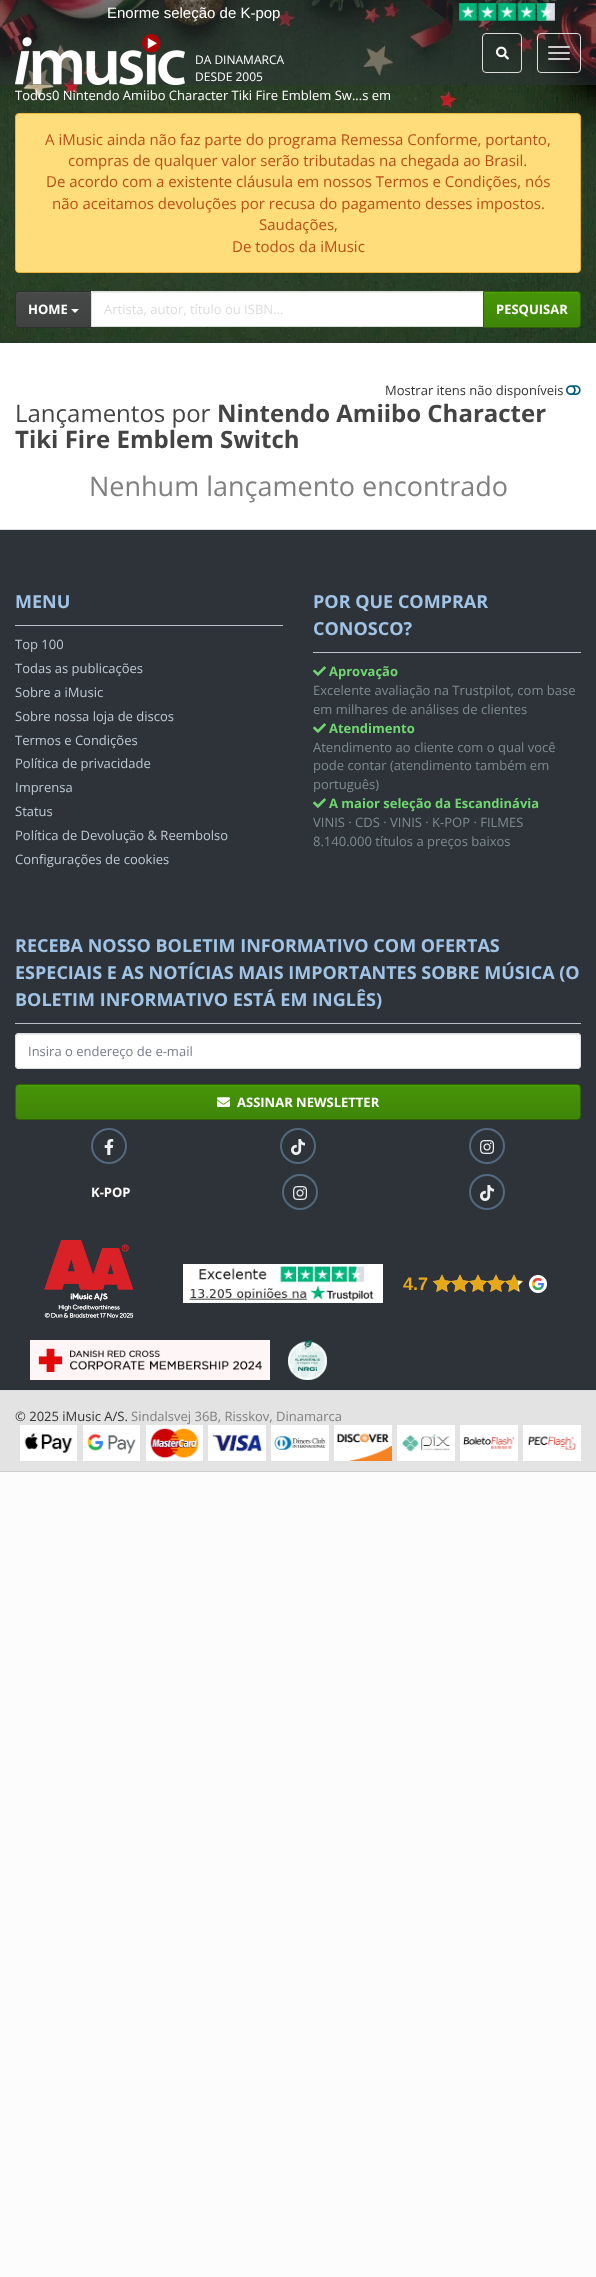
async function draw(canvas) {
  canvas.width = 596;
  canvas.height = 2277;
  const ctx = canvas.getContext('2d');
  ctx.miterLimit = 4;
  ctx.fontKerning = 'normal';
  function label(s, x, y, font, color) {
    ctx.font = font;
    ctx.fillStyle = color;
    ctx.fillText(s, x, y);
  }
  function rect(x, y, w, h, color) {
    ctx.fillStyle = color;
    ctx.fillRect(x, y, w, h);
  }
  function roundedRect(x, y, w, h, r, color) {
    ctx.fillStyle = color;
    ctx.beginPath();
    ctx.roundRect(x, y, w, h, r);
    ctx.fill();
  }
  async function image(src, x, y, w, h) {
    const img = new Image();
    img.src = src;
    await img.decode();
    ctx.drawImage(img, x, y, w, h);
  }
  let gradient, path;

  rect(0, 0, 596, 2277, '#fcfcfc');
  await image('assets/img1.png', 0, 0, 596, 343);
  rect(0, 0, 596, 85, '#2d333980');
  label('Enorme seleção de K-pop', 107, 18, '15px Liberation Sans', '#fff');
  await image('assets/img2.png', 459, 3, 96, 18);
  await image('assets/img3.png', 15, 34, 170, 51);
  label('DA DINAMARCA', 195, 64, '12px Open Sans', '#fff');
  label('DESDE 2005', 195, 81, '12px Open Sans', '#fff');
  ctx.beginPath();
  ctx.roundRect(482.5, 33.5, 39, 39, 3.5);
  ctx.strokeStyle = '#ddd';
  ctx.stroke();
  await image('assets/img4.png', 496, 46, 13, 14);
  ctx.beginPath();
  ctx.roundRect(537.5, 33.5, 43, 39, 3.5);
  ctx.stroke();
  roundedRect(548, 46, 22, 2, 1, '#ccc');
  roundedRect(548, 52, 22, 2, 1, '#ccc');
  roundedRect(548, 58, 22, 2, 1, '#ccc');
  label('Todos0 Nintendo Amiibo Character Tiki Fire Emblem Sw...s em', 15, 100, '13px Open Sans', '#fff');
  ctx.fillStyle = '#ffdd7a';
  ctx.beginPath();
  ctx.roundRect(15.5, 113.5, 565, 159, 3.5);
  ctx.fill();
  ctx.strokeStyle = '#eeb437';
  ctx.stroke();
  label('A iMusic ainda não faz parte do programa Remessa Conforme, portanto,', 45, 145, '15px Open Sans', '#b94e17');
  label('compras de qualquer valor serão tributadas na chegada ao Brasil.', 68, 166, '15px Open Sans', '#b94e17');
  label('De acordo com a existente cláusula em nossos Termos e Condições, nós', 46, 187, '15px Open Sans', '#b94e17');
  label('não aceitamos devoluções por recusa do pagamento desses impostos.', 52, 209, '15px Open Sans', '#b94e17');
  label('Saudações,', 259, 230, '15px Open Sans', '#b94e17');
  label('De todos da iMusic', 232, 252, '15px Open Sans', '#b94e17');
  gradient = ctx.createLinearGradient(54, 292, 54, 327);
  gradient.addColorStop(0, '#4f5151');
  gradient.addColorStop(0.06, '#474949');
  gradient.addColorStop(1, '#3f4141');
  ctx.fillStyle = gradient;
  ctx.fillRect(16, 292, 75, 35);
  ctx.beginPath();
  ctx.roundRect(15.5, 291.5, 76, 36, [3.5, 0, 0, 3.5]);
  ctx.strokeStyle = '#2e2f2f';
  ctx.stroke();
  label('HOME', 28, 314, 'bold 13px Open Sans', '#fff');
  path = new Path2D('M71 309H79L75 313Z');
  ctx.fill(path);
  rect(92, 293, 391, 33, '#fff');
  rect(92, 292, 391, 1, '#ececec');
  ctx.strokeStyle = '#ddd';
  ctx.strokeRect(91.5, 291.5, 392, 35);
  label('Artista, autor, título ou ISBN...', 104, 314, '13px Open Sans', '#ddd');
  gradient = ctx.createLinearGradient(532, 292, 532, 327);
  gradient.addColorStop(0, '#4da309');
  gradient.addColorStop(0.06, '#469408');
  gradient.addColorStop(1, '#3f8507');
  ctx.fillStyle = gradient;
  ctx.fillRect(484, 292, 96, 35);
  ctx.beginPath();
  ctx.roundRect(483.5, 291.5, 97, 36, [0, 3.5, 3.5, 0]);
  ctx.strokeStyle = '#2f6405';
  ctx.stroke();
  label('PESQUISAR', 496, 314, 'bold 13px Open Sans', '#fff');
  rect(0, 343, 596, 186, '#fff');
  label('Mostrar itens não disponíveis', 385, 395, '13px Open Sans', '#333');
  await image('assets/img5.png', 566, 385, 15, 10);
  label('Lançamentos por', 15, 422, '24px Open Sans', '#444');
  label('Nintendo Amiibo Character', 217, 422, 'bold 24px Open Sans', '#444');
  label('Tiki Fire Emblem Switch', 15, 448, 'bold 24px Open Sans', '#444');
  label('Nenhum lançamento encontrado', 89, 496, '27px Open Sans', '#808080');
  rect(0, 530, 596, 860, '#2d3339');
  rect(0, 529, 596, 1, '#ddd');
  rect(0, 1471, 596, 1, '#ccc');
  rect(15, 625, 268, 1, '#bac1c8');
  label('MENU', 15, 608, 'bold 18px Open Sans', '#a1c4e6');
  label('Top 100', 15, 649, '13px Open Sans', '#becad0');
  label('Todas as publicações', 15, 673, '13px Open Sans', '#becad0');
  label('Sobre a iMusic', 15, 697, '13px Open Sans', '#becad0');
  label('Sobre nossa loja de discos', 15, 721, '13px Open Sans', '#becad0');
  label('Termos e Condições', 15, 745, '13px Open Sans', '#becad0');
  label('Política de privacidade', 15, 768, '13px Open Sans', '#becad0');
  label('Imprensa', 15, 792, '13px Open Sans', '#becad0');
  label('Status', 15, 816, '13px Open Sans', '#becad0');
  label('Política de Devolução & Reembolso', 15, 840, '13px Open Sans', '#becad0');
  label('Configurações de cookies', 15, 864, '13px Open Sans', '#becad0');
  rect(313, 652, 268, 1, '#bac1c8');
  label('POR QUE COMPRAR', 313, 608, 'bold 18px Open Sans', '#a1c4e6');
  label('CONOSCO?', 313, 635, 'bold 18px Open Sans', '#a1c4e6');
  await image('assets/img6.png', 313, 666, 13, 10);
  label('Aprovação', 329, 676, 'bold 13px Open Sans', '#71d672');
  label('Excelente avaliação na Trustpilot, com base', 313, 695, '13px Open Sans', '#7f8c8d');
  label('em milhares de análises de clientes', 313, 714, '13px Open Sans', '#7f8c8d');
  await image('assets/img6.png', 313, 723, 13, 10);
  label('Atendimento', 329, 733, 'bold 13px Open Sans', '#71d672');
  label('Atendimento ao cliente com o qual você', 313, 752, '13px Open Sans', '#7f8c8d');
  label('pode contar (atendimento também em', 313, 770, '13px Open Sans', '#7f8c8d');
  label('português)', 313, 789, '13px Open Sans', '#7f8c8d');
  await image('assets/img6.png', 313, 798, 13, 10);
  label('A maior seleção da Escandinávia', 329, 808, 'bold 13px Open Sans', '#71d672');
  label('VINIS · CDS · VINIS · K-POP · FILMES', 313, 827, '13px Open Sans', '#7f8c8d');
  label('8.140.000 títulos a preços baixos', 313, 846, '13px Open Sans', '#7f8c8d');
  rect(15, 1023, 566, 1, '#bac1c8');
  label('RECEBA NOSSO BOLETIM INFORMATIVO COM OFERTAS', 15, 952, 'bold 18px Open Sans', '#a1c4e6');
  label('ESPECIAIS E AS NOTÍCIAS MAIS IMPORTANTES SOBRE MÚSICA (O', 15, 979, 'bold 18px Open Sans', '#a1c4e6');
  label('BOLETIM INFORMATIVO ESTÁ EM INGLÊS)', 15, 1006, 'bold 18px Open Sans', '#a1c4e6');
  roundedRect(15, 1033, 566, 36, 4, '#fff');
  ctx.fillStyle = '#ececec';
  path = new Path2D('M19 1035H577C579 1035 580 1036 580 1038V1037C580 1035 579 1034 577 1034H19C17 1034 16 1035 16 1037V1038C16 1036 17 1035 19 1035Z');
  ctx.fill(path);
  ctx.beginPath();
  ctx.roundRect(15.5, 1033.5, 565, 35, 3.5);
  ctx.strokeStyle = '#ddd';
  ctx.stroke();
  label('Insira o endereço de e-mail', 28, 1056, '13px Open Sans', '#787d86');
  ctx.save();
  ctx.beginPath();
  ctx.roundRect(15, 1084, 566, 36, 4);
  ctx.clip();
  gradient = ctx.createLinearGradient(298, 1085, 298, 1119);
  gradient.addColorStop(0, '#4da309');
  gradient.addColorStop(0.06, '#469408');
  gradient.addColorStop(1, '#3f8507');
  ctx.fillStyle = gradient;
  ctx.fillRect(16, 1085, 564, 34);
  ctx.restore();
  ctx.beginPath();
  ctx.roundRect(15.5, 1084.5, 565, 35, 3.5);
  ctx.strokeStyle = '#2f6405';
  ctx.stroke();
  await image('assets/img7.png', 217, 1097, 13, 10);
  label('ASSINAR NEWSLETTER', 237, 1107, 'bold 13px Open Sans', '#fff');
  ctx.beginPath();
  ctx.arc(109, 1146, 17, 0, 2 * Math.PI);
  ctx.strokeStyle = '#54697e';
  ctx.lineWidth = 2;
  ctx.stroke();
  await image('assets/img8.png', 104, 1139, 10, 16);
  ctx.beginPath();
  ctx.arc(298, 1146, 17, 0, 2 * Math.PI);
  ctx.stroke();
  await image('assets/img9.png', 291, 1139, 14, 16);
  ctx.beginPath();
  ctx.arc(487, 1146, 17, 0, 2 * Math.PI);
  ctx.stroke();
  await image('assets/img10.png', 480, 1140, 15, 14);
  label('K-POP', 91, 1197, 'bold 13px Open Sans', '#fff');
  ctx.beginPath();
  ctx.arc(300, 1192, 17, 0, 2 * Math.PI);
  ctx.stroke();
  await image('assets/img10.png', 293, 1186, 15, 14);
  ctx.beginPath();
  ctx.arc(487, 1192, 17, 0, 2 * Math.PI);
  ctx.stroke();
  await image('assets/img9.png', 480, 1185, 14, 16);
  await image('assets/img11.png', 44, 1240, 90, 78);
  await image('assets/img12.png', 44, 1240, 90, 78);
  rect(183, 1264, 200, 39, '#fff');
  await image('assets/img13.png', 189, 1266, 185, 35);
  await image('assets/img14.png', 432, 1274, 92, 18);
  label('4.7', 403, 1290, 'bold 18px Liberation Sans', '#e6a817');
  await image('assets/img15.png', 529, 1275, 18, 18);
  await image('assets/img16.png', 30, 1340, 240, 40);
  await image('assets/img17.png', 288, 1340, 39, 40);
  await image('assets/img18.png', 288, 1340, 39, 40);
  rect(0, 1391, 596, 80, '#e3e3e3');
  rect(0, 1390, 596, 1, '#ddd');
  label('© 2025 iMusic A/S.', 15, 1421, '13px Open Sans', '#333');
  label('Sindalsvej 36B, Risskov, Dinamarca', 131, 1421, '13px Open Sans', '#808080');
  await image('assets/img19.png', 20, 1425, 57, 36);
  await image('assets/img20.png', 83, 1425, 57, 36);
  await image('assets/img21.png', 146, 1425, 57, 36);
  await image('assets/img22.png', 208, 1425, 58, 36);
  await image('assets/img23.png', 271, 1425, 58, 36);
  await image('assets/img24.png', 334, 1425, 58, 36);
  await image('assets/img25.png', 397, 1425, 58, 36);
  await image('assets/img26.png', 460, 1425, 58, 36);
  await image('assets/img27.png', 523, 1425, 58, 36);
}

draw(document.querySelector('canvas'));
